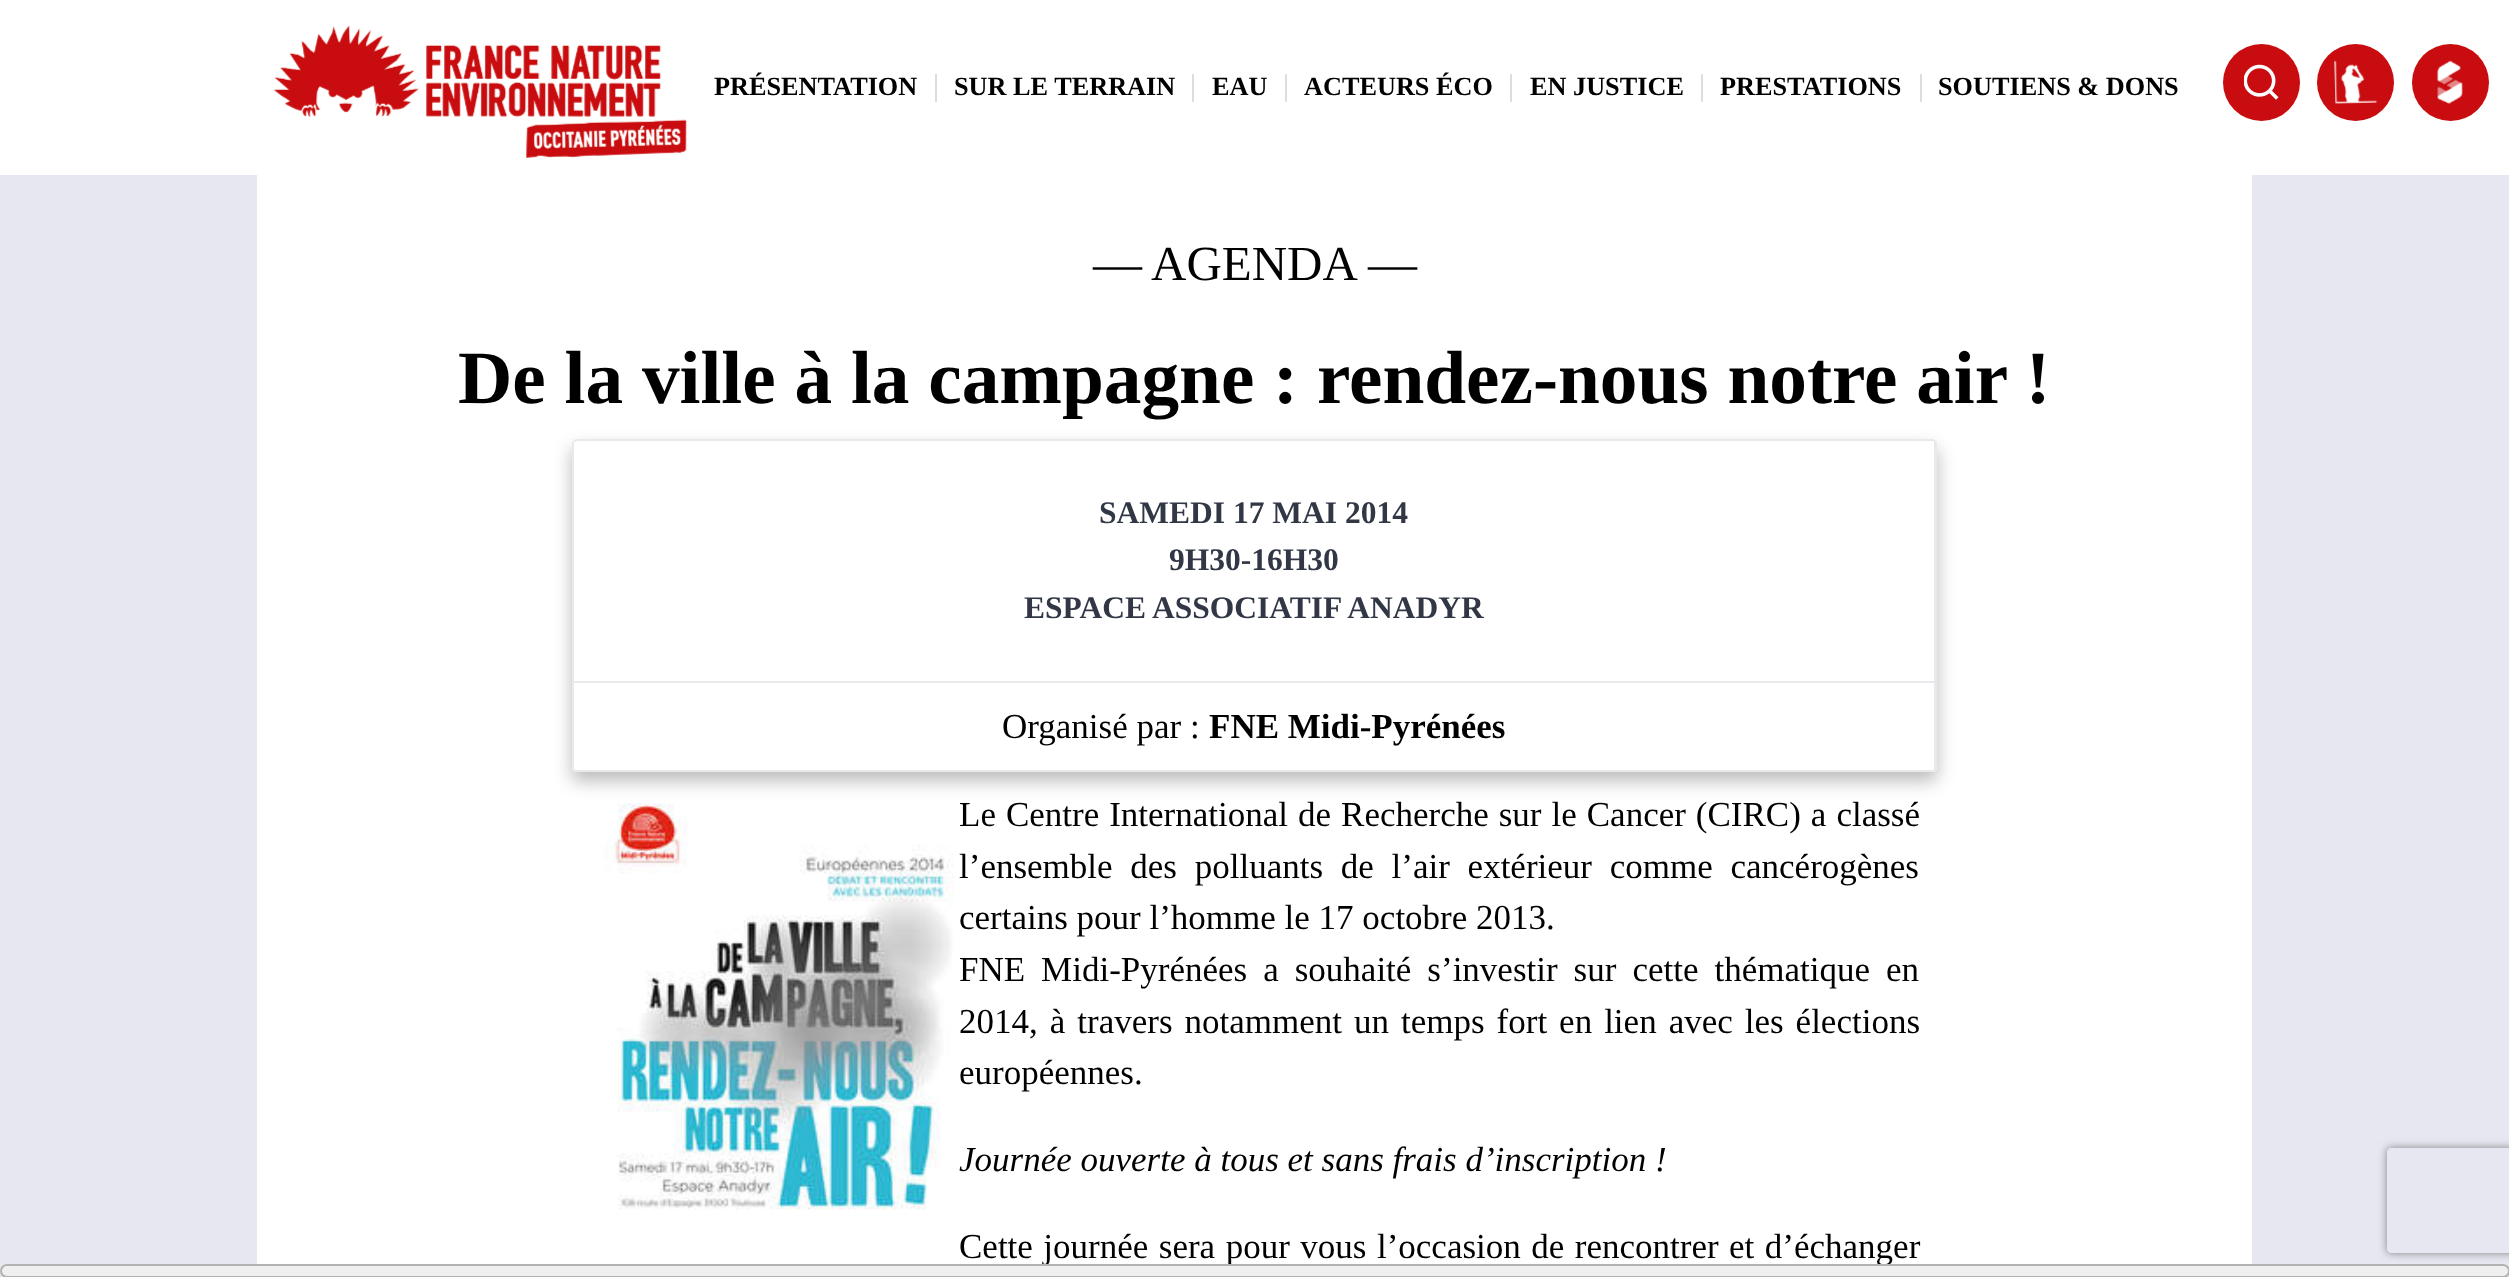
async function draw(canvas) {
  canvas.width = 2509;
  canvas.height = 1277;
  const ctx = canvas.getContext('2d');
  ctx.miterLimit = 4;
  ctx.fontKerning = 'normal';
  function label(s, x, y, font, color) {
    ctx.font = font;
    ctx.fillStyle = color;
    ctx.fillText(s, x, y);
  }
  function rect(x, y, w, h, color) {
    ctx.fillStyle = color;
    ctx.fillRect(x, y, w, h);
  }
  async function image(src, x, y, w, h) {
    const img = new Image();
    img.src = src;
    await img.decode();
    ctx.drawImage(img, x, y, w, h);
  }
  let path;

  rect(0, 0, 2509, 1277, '#e7e7f2');
  rect(0, 0, 2509, 175, '#fff');
  await image('assets/img1.png', 274, 25, 413, 133);
  label('PRÉSENTATION', 714, 95, 'bold 26.25px Liberation Serif', '#000');
  label('SUR LE TERRAIN', 954, 95, 'bold 26.25px Liberation Serif', '#000');
  rect(935, 74, 2, 28, '#ddd');
  label('EAU', 1212, 95, 'bold 26.25px Liberation Serif', '#000');
  rect(1192, 74, 2, 28, '#ddd');
  label('ACTEURS ÉCO', 1304, 95, 'bold 26.25px Liberation Serif', '#000');
  rect(1285, 74, 2, 28, '#ddd');
  label('EN JUSTICE', 1530, 95, 'bold 26.25px Liberation Serif', '#000');
  rect(1510, 74, 2, 28, '#ddd');
  label('PRESTATIONS', 1720, 95, 'bold 26.25px Liberation Serif', '#000');
  rect(1701, 74, 2, 28, '#ddd');
  label('SOUTIENS & DONS', 1938, 95, 'bold 26.25px Liberation Serif', '#000');
  rect(1920, 74, 2, 28, '#ddd');
  ctx.fillStyle = '#c90c0f';
  ctx.beginPath();
  ctx.arc(2261.5, 82.5, 38.5, 0, 2 * Math.PI);
  ctx.fill();
  await image('assets/img2.png', 2244, 64, 35, 36);
  ctx.beginPath();
  ctx.arc(2355.5, 82.5, 38.5, 0, 2 * Math.PI);
  ctx.fill();
  await image('assets/img3.png', 2334, 60, 44, 44);
  ctx.beginPath();
  ctx.arc(2450.5, 82.5, 38.5, 0, 2 * Math.PI);
  ctx.fill();
  await image('assets/img4.png', 2437, 60, 26, 44);
  rect(257, 175, 1995, 1089, '#fff');
  label('—', 1093, 280, '49px Liberation Serif', '#000');
  label('AGENDA', 1151, 280, '49px Liberation Serif', '#000');
  label('—', 1368, 280, '49px Liberation Serif', '#000');
  label('De la ville à la campagne : rendez-nous notre air !', 458, 403, 'bold 75.25px Liberation Serif', '#000');
  await image('assets/img5.png', 603, 803, 351, 461);
  ctx.save();
  path = new Path2D('M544 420H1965V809H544ZM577 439H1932C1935 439 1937 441 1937 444V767C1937 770 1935 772 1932 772H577C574 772 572 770 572 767V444C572 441 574 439 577 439Z');
  ctx.clip(path, 'evenodd');
  ctx.fillStyle = '#00000045';
  ctx.filter = 'blur(9px)';
  ctx.beginPath();
  ctx.roundRect(572, 448, 1365, 333, 5);
  ctx.fill();
  ctx.filter = 'none';
  ctx.restore();
  ctx.beginPath();
  ctx.roundRect(573, 440, 1363, 331, 4);
  ctx.strokeStyle = '#e7e9ed';
  ctx.lineWidth = 2;
  ctx.stroke();
  ctx.save();
  ctx.beginPath();
  ctx.roundRect(574, 441, 1362, 329, 4);
  ctx.clip();
  rect(1934, 441, 2, 329, '#e7e9ed');
  ctx.restore();
  rect(574, 681, 1360, 2, '#e7e9ed');
  label('SAMEDI 17 MAI 2014', 1099, 523, 'bold 31.5px Liberation Serif', '#313745');
  label('9H30-16H30', 1169, 570, 'bold 31.5px Liberation Serif', '#313745');
  label('ESPACE ASSOCIATIF ANADYR', 1024, 618, 'bold 31.5px Liberation Serif', '#313745');
  label('Organisé par :', 1002, 738, '35px Liberation Serif', '#000');
  label('FNE Midi-Pyrénées', 1209, 738, 'bold 35px Liberation Serif', '#000');
  ctx.wordSpacing = '1.25px';
  label('Le Centre International de Recherche sur le Cancer (CIRC) a classé', 959, 826, '35px Liberation Serif', '#000');
  ctx.wordSpacing = '9px';
  label('l’ensemble des polluants de l’air extérieur comme cancérogènes', 959, 878, '35px Liberation Serif', '#000');
  ctx.wordSpacing = '0px';
  label('certains pour l’homme le 17 octobre 2013.', 959, 929, '35px Liberation Serif', '#000');
  ctx.wordSpacing = '7.25px';
  label('FNE Midi-Pyrénées a souhaité s’investir sur cette thématique en', 959, 981, '35px Liberation Serif', '#000');
  ctx.wordSpacing = '3.25px';
  label('2014, à travers notamment un temps fort en lien avec les élections', 959, 1033, '35px Liberation Serif', '#000');
  ctx.wordSpacing = '0px';
  label('européennes.', 959, 1084, '35px Liberation Serif', '#000');
  label('Journée ouverte à tous et sans frais d’inscription !', 959, 1171, 'italic 35px Liberation Serif', '#000');
  ctx.wordSpacing = '1.75px';
  label('Cette journée sera pour vous l’occasion de rencontrer et d’échanger', 959, 1258, '35px Liberation Serif', '#000');
  ctx.save();
  path = new Path2D('M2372 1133H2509V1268H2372ZM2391 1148H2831C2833 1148 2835 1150 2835 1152V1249C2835 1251 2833 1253 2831 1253H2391C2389 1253 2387 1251 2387 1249V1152C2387 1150 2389 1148 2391 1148Z');
  ctx.clip(path, 'evenodd');
  ctx.fillStyle = '#808080';
  ctx.filter = 'blur(4.5px)';
  ctx.beginPath();
  ctx.roundRect(2387, 1148, 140, 105, 4);
  ctx.fill();
  ctx.filter = 'none';
  ctx.restore();
  ctx.fillStyle = '#efefef';
  ctx.beginPath();
  ctx.roundRect(1, 1265, 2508, 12, 6);
  ctx.fill();
  ctx.strokeStyle = '#b2b2b2';
  ctx.stroke();
}

draw(document.querySelector('canvas'));
